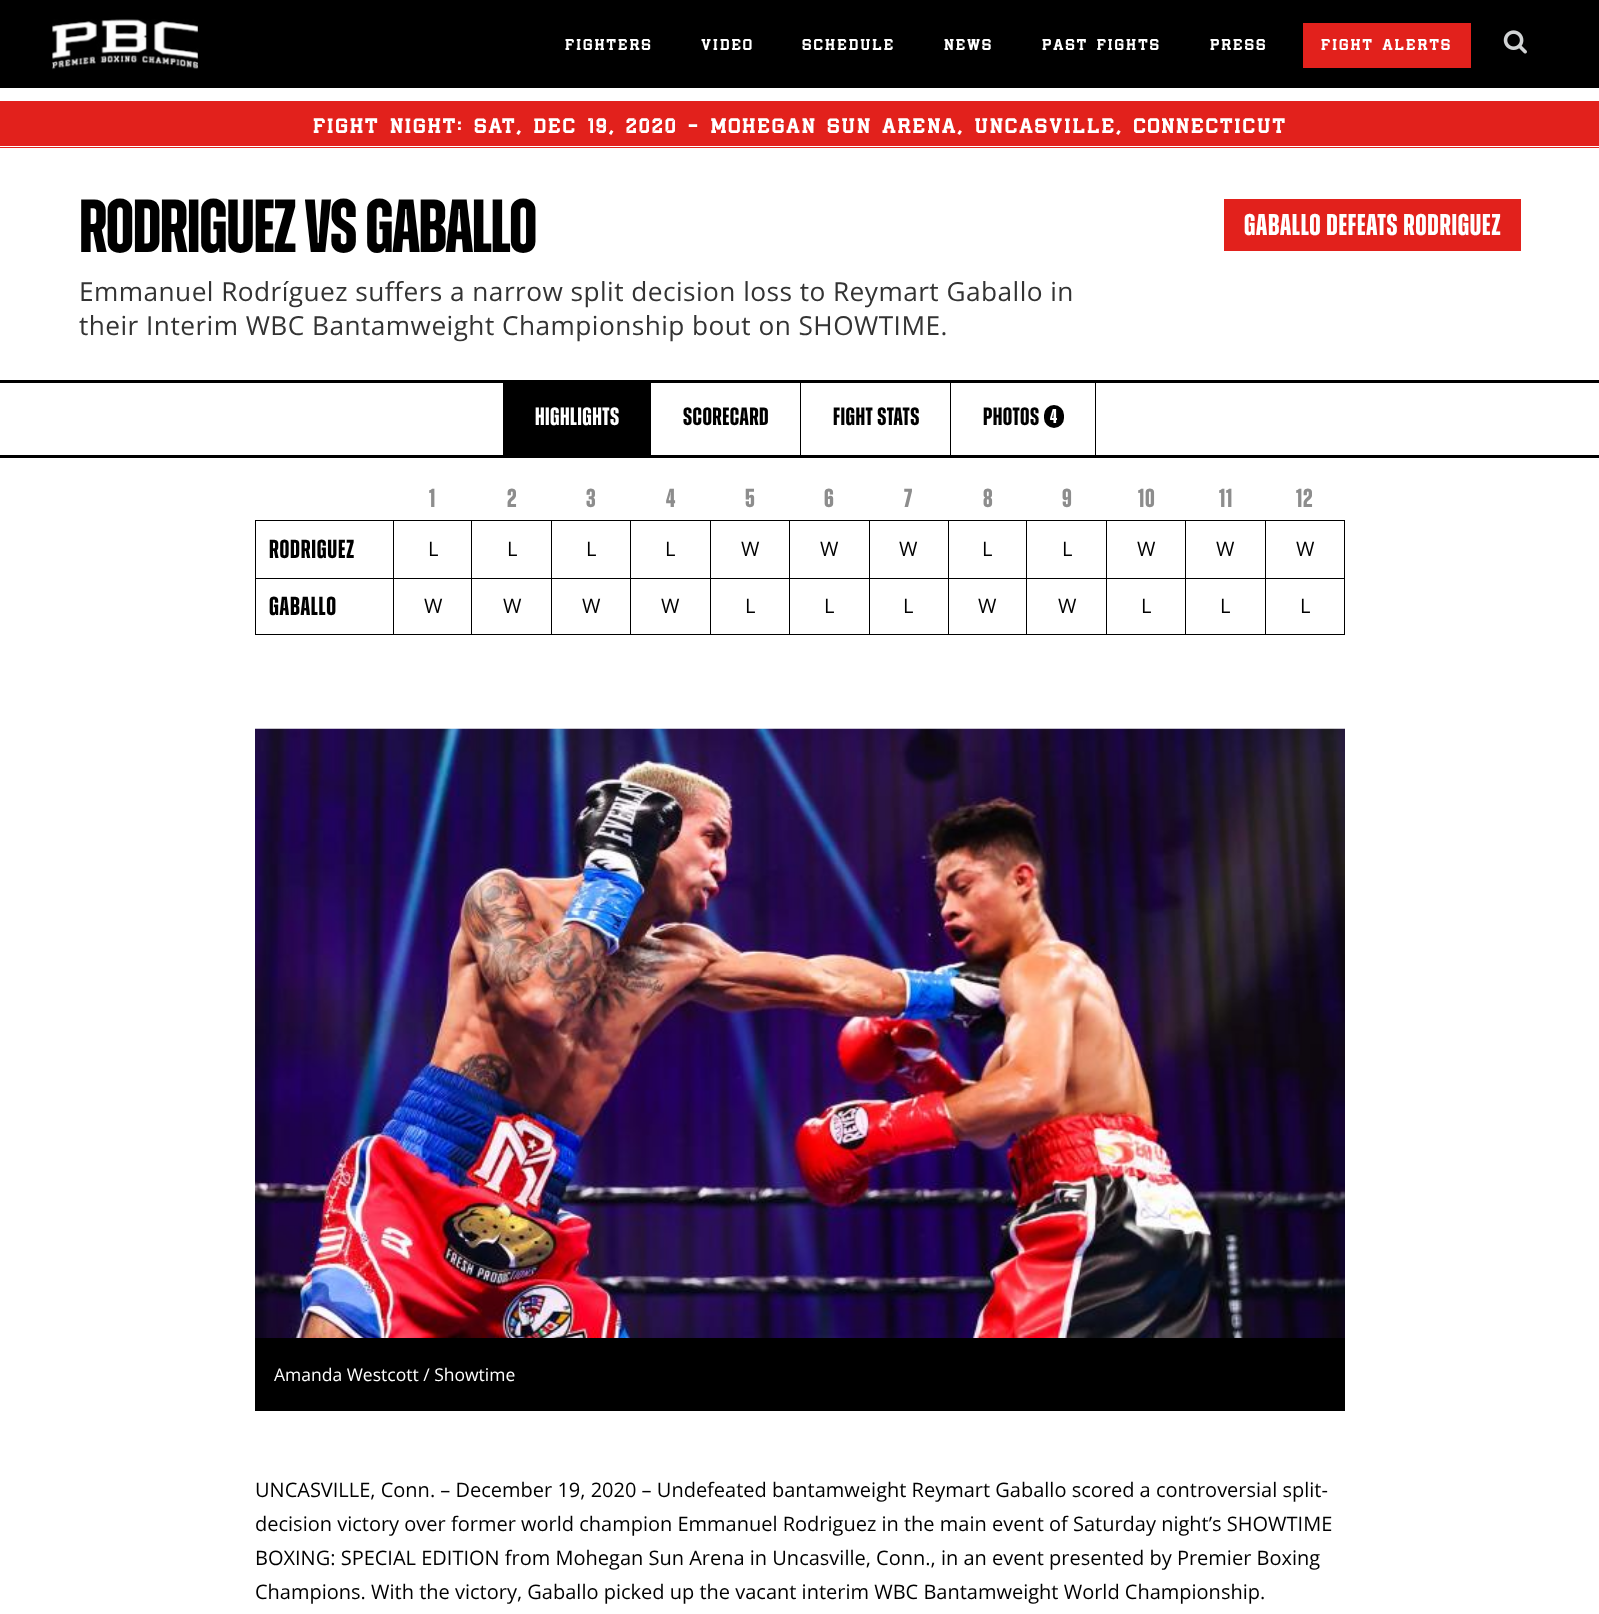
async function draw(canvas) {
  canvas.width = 1599;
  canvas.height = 1614;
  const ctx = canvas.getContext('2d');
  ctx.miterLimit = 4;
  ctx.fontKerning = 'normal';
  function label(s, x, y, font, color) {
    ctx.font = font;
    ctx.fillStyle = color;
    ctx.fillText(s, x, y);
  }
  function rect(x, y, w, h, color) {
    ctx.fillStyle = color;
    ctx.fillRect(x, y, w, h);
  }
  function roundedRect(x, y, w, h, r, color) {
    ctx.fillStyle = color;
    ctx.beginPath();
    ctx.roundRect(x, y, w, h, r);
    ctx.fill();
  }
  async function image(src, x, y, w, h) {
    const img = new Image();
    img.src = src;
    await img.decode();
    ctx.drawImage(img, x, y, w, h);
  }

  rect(0, 0, 1599, 1614, '#fff');
  rect(0, 0, 1599, 88, '#000');
  await image('assets/img1.png', 52, 19, 147, 51);
  ctx.letterSpacing = '2.5px';
  label('FIGHTERS', 565, 50, 'bold 15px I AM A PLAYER', '#fff');
  label('VIDEO', 701, 50, 'bold 15px I AM A PLAYER', '#fff');
  label('SCHEDULE', 802, 50, 'bold 15px I AM A PLAYER', '#fff');
  label('NEWS', 944, 50, 'bold 15px I AM A PLAYER', '#fff');
  label('PAST FIGHTS', 1042, 50, 'bold 15px I AM A PLAYER', '#fff');
  label('PRESS', 1210, 50, 'bold 15px I AM A PLAYER', '#fff');
  rect(1303, 23, 168, 45, '#e2211c');
  label('FIGHT ALERTS', 1321, 50, 'bold 15px I AM A PLAYER', '#fff');
  await image('assets/img2.png', 1503, 30, 24, 24);
  rect(0, 101, 1599, 47, '#e2211c');
  rect(0, 146, 1599, 1, '#fff');
  label('FIGHT NIGHT: SAT, DEC 19, 2020 - MOHEGAN SUN ARENA, UNCASVILLE, CONNECTICUT', 313, 133, 'bold 20px I AM A PLAYER', '#fff');
  ctx.letterSpacing = '-1.35px';
  label('RODRIGUEZ VS GABALLO', 79, 252, 'bold 75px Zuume', '#000');
  rect(1224, 199, 297, 52, '#e2211c');
  ctx.letterSpacing = '0.75px';
  label('GABALLO DEFEATS RODRIGUEZ', 1244, 235, 'bold 30px Zuume', '#fff');
  ctx.letterSpacing = '0.45px';
  label('Emmanuel Rodríguez suffers a narrow split decision loss to Reymart Gaballo in', 79, 301, '26.25px Open Sans', '#333');
  label('their Interim WBC Bantamweight Championship bout on SHOWTIME.', 79, 335, '26.25px Open Sans', '#333');
  rect(0, 380, 1599, 3, '#000');
  rect(0, 455, 1599, 3, '#000');
  rect(503, 383, 148, 72, '#000');
  label('HIGHLIGHTS', 535, 425, 'bold 25px Zuume', '#fff');
  label('SCORECARD', 683, 425, 'bold 25px Zuume', '#000');
  rect(800, 383, 1, 72, '#000');
  label('FIGHT STATS', 833, 425, 'bold 25px Zuume', '#000');
  rect(1095, 383, 1, 72, '#000');
  rect(950, 383, 1, 72, '#000');
  label('PHOTOS', 983, 425, 'bold 25px Zuume', '#000');
  roundedRect(1044, 405, 20, 23, 10, '#000');
  label('4', 1050, 423, 'bold 20px Zuume', '#fff');
  ctx.letterSpacing = '0.75px';
  label('1', 429, 507, 'bold 26px Zuume', '#8d8d8d');
  label('2', 507, 507, 'bold 26px Zuume', '#8d8d8d');
  label('3', 586, 507, 'bold 26px Zuume', '#8d8d8d');
  label('4', 666, 507, 'bold 26px Zuume', '#8d8d8d');
  label('5', 745, 507, 'bold 26px Zuume', '#8d8d8d');
  label('6', 824, 507, 'bold 26px Zuume', '#8d8d8d');
  label('7', 904, 507, 'bold 26px Zuume', '#8d8d8d');
  label('8', 983, 507, 'bold 26px Zuume', '#8d8d8d');
  label('9', 1062, 507, 'bold 26px Zuume', '#8d8d8d');
  label('10', 1138, 507, 'bold 26px Zuume', '#8d8d8d');
  label('11', 1219, 507, 'bold 26px Zuume', '#8d8d8d');
  label('12', 1296, 507, 'bold 26px Zuume', '#8d8d8d');
  rect(1265, 520, 80, 1, '#000');
  rect(1265, 578, 80, 1, '#000');
  rect(1344, 578, 1, 57, '#000');
  rect(1265, 634, 80, 1, '#000');
  rect(1265, 578, 1, 57, '#000');
  rect(1185, 578, 81, 1, '#000');
  rect(1265, 520, 1, 59, '#000');
  rect(1185, 520, 81, 1, '#000');
  rect(1185, 634, 81, 1, '#000');
  rect(1185, 578, 1, 57, '#000');
  rect(1106, 578, 80, 1, '#000');
  rect(1185, 520, 1, 59, '#000');
  rect(1106, 520, 80, 1, '#000');
  rect(1106, 634, 80, 1, '#000');
  rect(1106, 578, 1, 57, '#000');
  rect(1026, 578, 82, 1, '#000');
  rect(1106, 520, 1, 59, '#000');
  rect(1026, 520, 82, 1, '#000');
  rect(1026, 634, 82, 1, '#000');
  rect(1026, 578, 1, 57, '#000');
  rect(948, 578, 80, 1, '#000');
  rect(1026, 520, 1, 59, '#000');
  rect(948, 520, 80, 1, '#000');
  rect(948, 634, 80, 1, '#000');
  rect(948, 578, 1, 57, '#000');
  rect(869, 578, 80, 1, '#000');
  rect(948, 520, 1, 59, '#000');
  rect(869, 520, 80, 1, '#000');
  rect(869, 634, 80, 1, '#000');
  rect(869, 578, 1, 57, '#000');
  rect(789, 578, 81, 1, '#000');
  rect(869, 520, 1, 59, '#000');
  rect(789, 520, 81, 1, '#000');
  rect(789, 634, 81, 1, '#000');
  rect(789, 578, 1, 57, '#000');
  rect(710, 578, 80, 1, '#000');
  rect(789, 520, 1, 59, '#000');
  rect(710, 520, 80, 1, '#000');
  rect(710, 634, 80, 1, '#000');
  rect(710, 578, 1, 57, '#000');
  rect(630, 578, 81, 1, '#000');
  rect(710, 520, 1, 59, '#000');
  rect(630, 520, 81, 1, '#000');
  rect(630, 634, 81, 1, '#000');
  rect(630, 578, 1, 57, '#000');
  rect(551, 578, 80, 1, '#000');
  rect(630, 520, 1, 59, '#000');
  rect(551, 520, 80, 1, '#000');
  rect(551, 634, 80, 1, '#000');
  rect(551, 578, 1, 57, '#000');
  rect(471, 578, 82, 1, '#000');
  rect(551, 520, 1, 59, '#000');
  rect(471, 520, 82, 1, '#000');
  rect(471, 634, 82, 1, '#000');
  rect(471, 578, 1, 57, '#000');
  rect(393, 578, 80, 1, '#000');
  rect(471, 520, 1, 59, '#000');
  rect(393, 520, 80, 1, '#000');
  rect(393, 634, 80, 1, '#000');
  rect(393, 578, 1, 57, '#000');
  rect(255, 578, 139, 1, '#000');
  rect(393, 520, 1, 59, '#000');
  rect(255, 520, 139, 1, '#000');
  rect(255, 634, 139, 1, '#000');
  rect(255, 578, 1, 57, '#000');
  rect(255, 520, 1, 59, '#000');
  label('RODRIGUEZ', 269, 558, 'bold 26px Zuume', '#000');
  ctx.letterSpacing = '0px';
  label('L', 428, 556, '20px Open Sans', '#000');
  label('L', 507, 556, '20px Open Sans', '#000');
  label('L', 586, 556, '20px Open Sans', '#000');
  label('L', 665, 556, '20px Open Sans', '#000');
  label('W', 741, 556, '20px Open Sans', '#000');
  label('W', 820, 556, '20px Open Sans', '#000');
  label('W', 899, 556, '20px Open Sans', '#000');
  label('L', 982, 556, '20px Open Sans', '#000');
  label('L', 1062, 556, '20px Open Sans', '#000');
  label('W', 1137, 556, '20px Open Sans', '#000');
  label('W', 1216, 556, '20px Open Sans', '#000');
  rect(1344, 520, 1, 59, '#000');
  label('W', 1296, 556, '20px Open Sans', '#000');
  ctx.letterSpacing = '0.75px';
  label('GABALLO', 269, 615, 'bold 26px Zuume', '#000');
  ctx.letterSpacing = '0px';
  label('W', 424, 613, '20px Open Sans', '#000');
  label('W', 503, 613, '20px Open Sans', '#000');
  label('W', 582, 613, '20px Open Sans', '#000');
  label('W', 661, 613, '20px Open Sans', '#000');
  label('L', 745, 613, '20px Open Sans', '#000');
  label('L', 824, 613, '20px Open Sans', '#000');
  label('L', 903, 613, '20px Open Sans', '#000');
  label('W', 978, 613, '20px Open Sans', '#000');
  label('W', 1058, 613, '20px Open Sans', '#000');
  label('L', 1141, 613, '20px Open Sans', '#000');
  label('L', 1220, 613, '20px Open Sans', '#000');
  label('L', 1300, 613, '20px Open Sans', '#000');
  await image('assets/img3.png', 255, 728, 1090, 610);
  rect(255, 1338, 1090, 73, '#000');
  label('Amanda Westcott / Showtime', 274, 1381, '17.5px Open Sans', '#fff');
  label('UNCASVILLE, Conn. – December 19, 2020 – Undefeated bantamweight Reymart Gaballo scored a controversial split-', 255, 1497, '20px Open Sans', '#000');
  label('decision victory over former world champion Emmanuel Rodriguez in the main event of Saturday night’s SHOWTIME', 255, 1531, '20px Open Sans', '#000');
  label('BOXING: SPECIAL EDITION from Mohegan Sun Arena in Uncasville, Conn., in an event presented by Premier Boxing', 255, 1565, '20px Open Sans', '#000');
  label('Champions. With the victory, Gaballo picked up the vacant interim WBC Bantamweight World Championship.', 255, 1599, '20px Open Sans', '#000');
}

draw(document.querySelector('canvas'));
